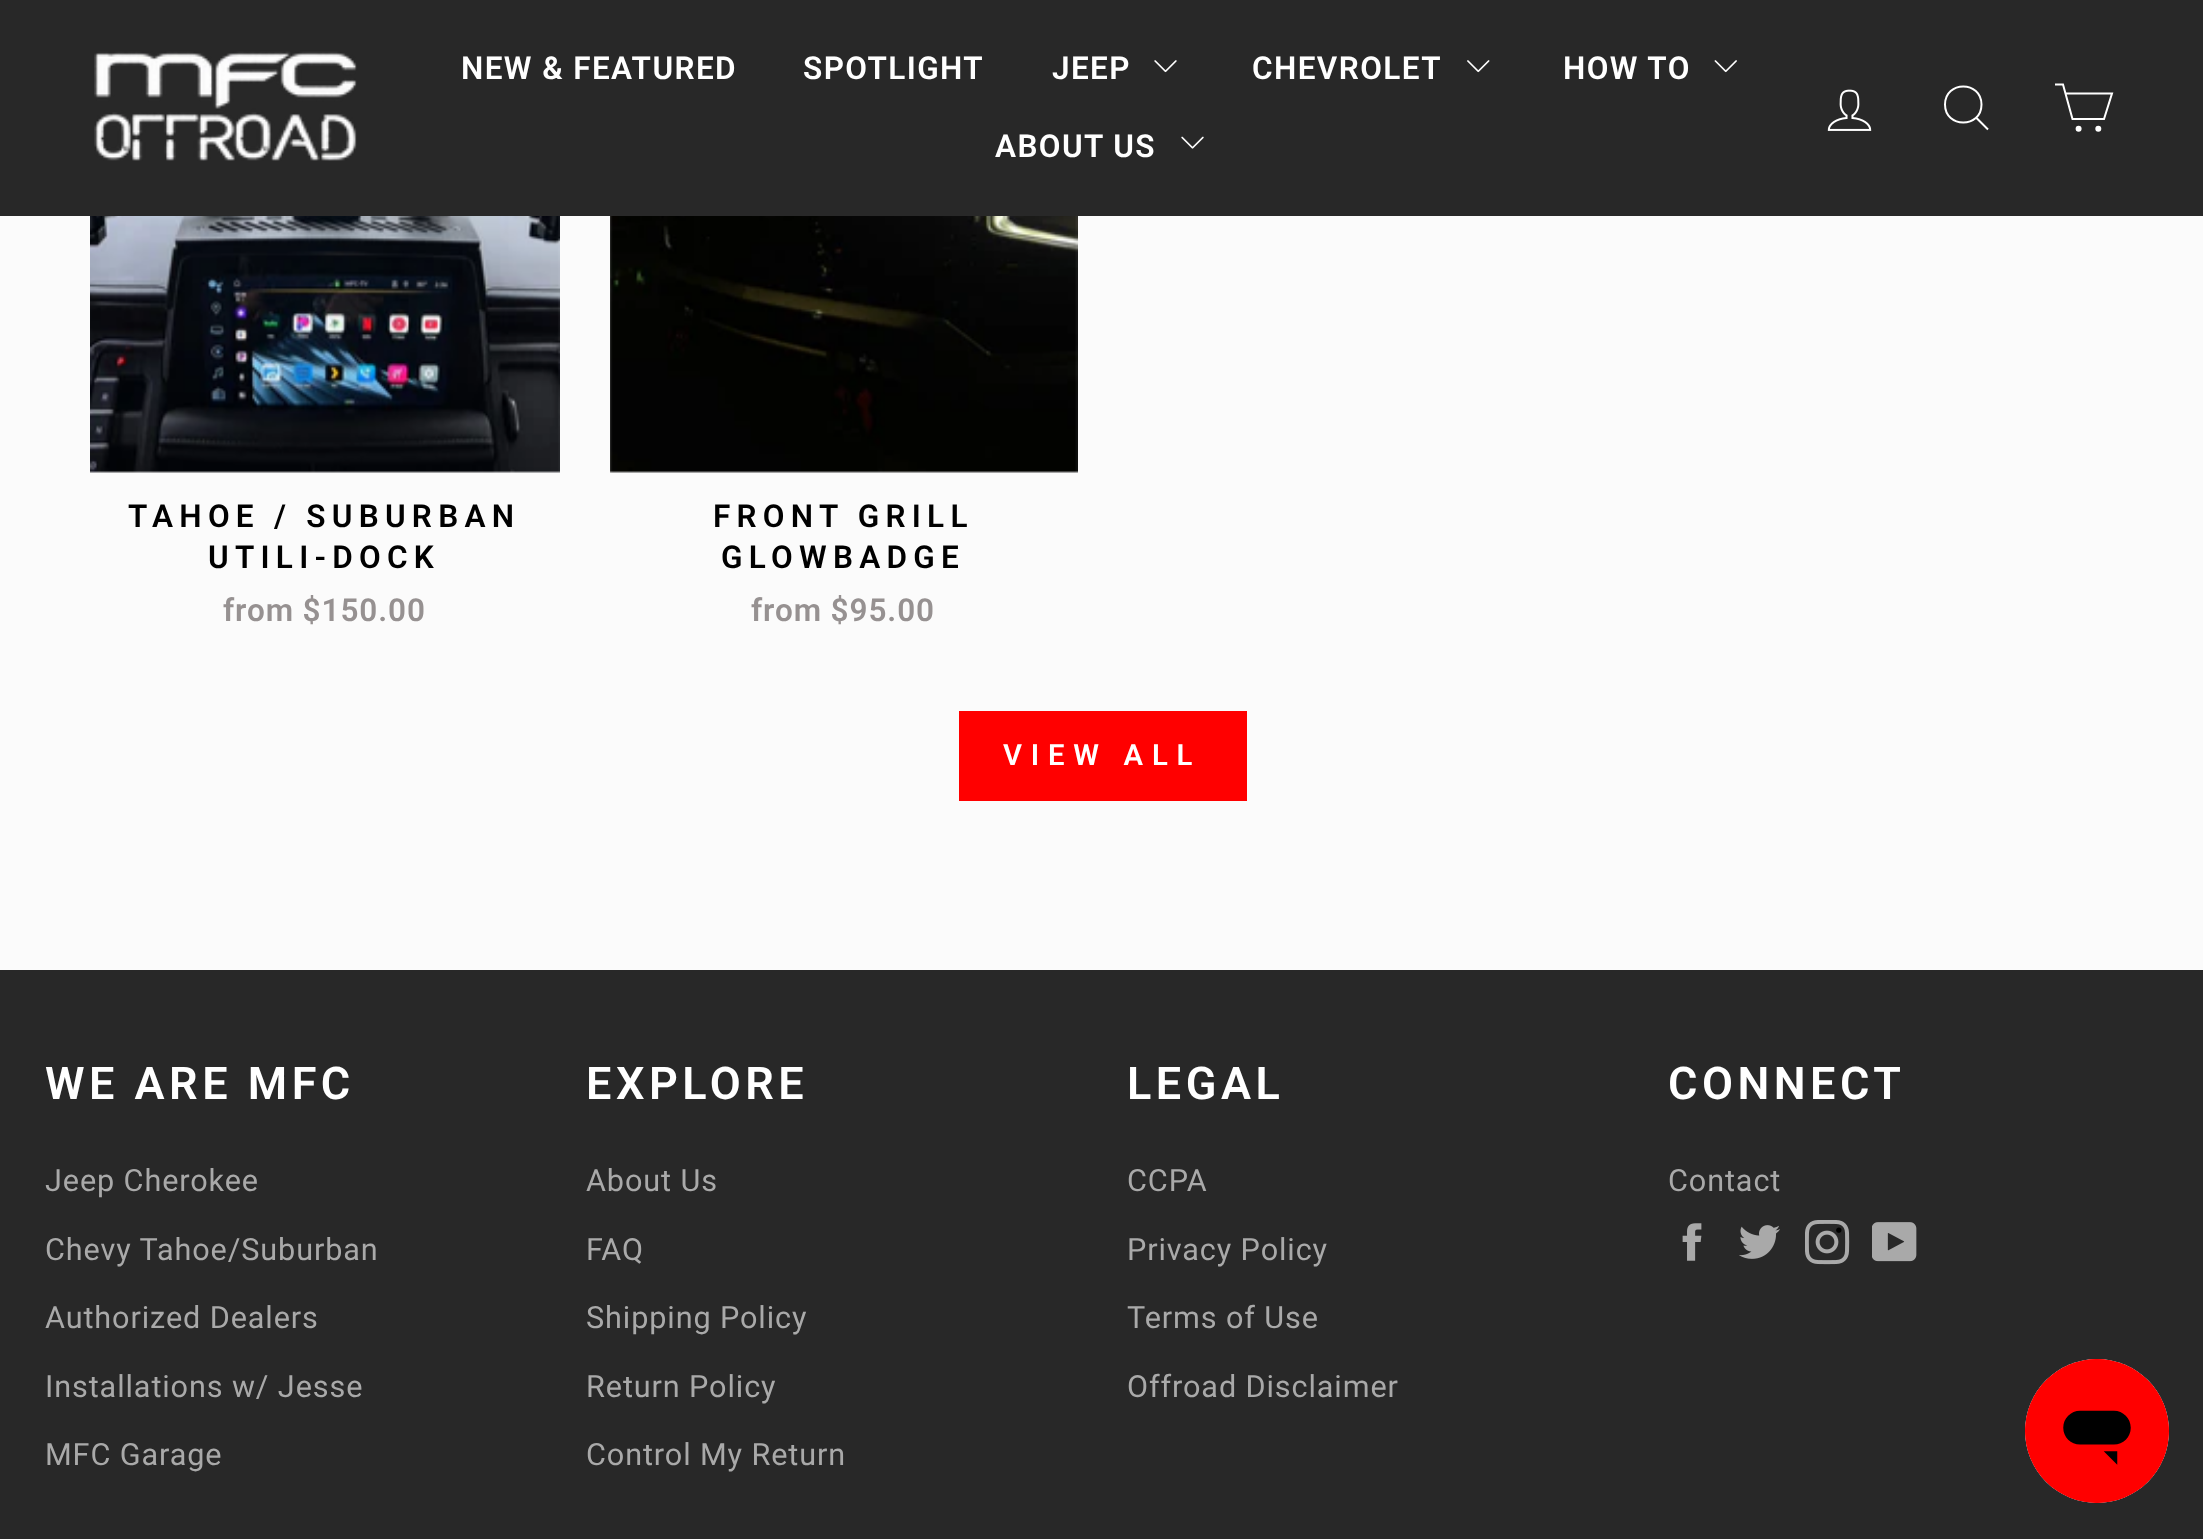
async function draw(canvas) {
  canvas.width = 2203;
  canvas.height = 1539;
  const ctx = canvas.getContext('2d');
  ctx.miterLimit = 4;
  ctx.fontKerning = 'normal';
  function label(s, x, y, font, color) {
    ctx.font = font;
    ctx.fillStyle = color;
    ctx.fillText(s, x, y);
  }
  function rect(x, y, w, h, color) {
    ctx.fillStyle = color;
    ctx.fillRect(x, y, w, h);
  }
  async function image(src, x, y, w, h) {
    const img = new Image();
    img.src = src;
    await img.decode();
    ctx.drawImage(img, x, y, w, h);
  }
  let path;

  rect(0, 0, 2203, 1539, '#fbfbfb');
  rect(0, 0, 2203, 216, '#282828');
  await image('assets/img1.png', 94, 51, 263, 110);
  ctx.letterSpacing = '1.4px';
  label('NEW & FEATURED', 461, 79, '600 31.5px roboto', '#fff');
  label('SPOTLIGHT', 803, 79, '600 31.5px roboto', '#fff');
  label('JEEP', 1052, 79, '600 31.5px roboto', '#fff');
  await image('assets/img2.png', 1154, 60, 23, 13);
  label('CHEVROLET', 1252, 79, '600 31.5px roboto', '#fff');
  await image('assets/img3.png', 1467, 60, 23, 13);
  label('HOW TO', 1563, 79, '600 31.5px roboto', '#fff');
  await image('assets/img4.png', 1714, 60, 23, 13);
  label('ABOUT US', 995, 157, '600 31.5px roboto', '#fff');
  await image('assets/img5.png', 1181, 136, 23, 13);
  await image('assets/img6.png', 1827, 89, 45, 42);
  path = new Path2D('M1981.5 104.5C1981.5 128.5 1945 128.5 1945 104.5C1945 80.5 1981.5 80.5 1981.5 104.5ZM1988 129.5L1976.5 118');
  ctx.strokeStyle = '#fff';
  ctx.lineWidth = 2;
  ctx.stroke(path);
  path = new Path2D('M2066 93.5H2112L2104 119H2072.5L2063 84.5H2055');
  ctx.stroke(path);
  ctx.beginPath();
  ctx.arc(2078.6, 128.7, 2, 0, 2 * Math.PI);
  ctx.fill();
  ctx.stroke();
  ctx.beginPath();
  ctx.arc(2098.3, 128.7, 2, 0, 2 * Math.PI);
  ctx.fill();
  ctx.stroke();
  rect(90, 216, 470, 257, '#fff');
  await image('assets/img7.png', 90, 216, 470, 257);
  ctx.letterSpacing = '6.25px';
  label('TAHOE / SUBURBAN', 128, 527, '600 31.5px roboto', '#000');
  label('UTILI-DOCK', 208, 568, '600 31.5px roboto', '#000');
  ctx.letterSpacing = '0.9px';
  label('from $150.00', 223, 621, '600 31.5px roboto', '#969191');
  rect(610, 216, 468, 257, '#fff');
  await image('assets/img8.png', 610, 216, 468, 257);
  ctx.letterSpacing = '6.25px';
  label('FRONT GRILL', 713, 527, '600 31.5px roboto', '#000');
  label('GLOWBADGE', 721, 568, '600 31.5px roboto', '#000');
  ctx.letterSpacing = '0.9px';
  label('from $95.00', 751, 621, '600 31.5px roboto', '#969191');
  rect(959, 711, 288, 90, '#f00');
  ctx.letterSpacing = '8.75px';
  label('VIEW ALL', 1003, 765, '600 29.25px roboto', '#fff');
  rect(0, 970, 2203, 569, '#282828');
  ctx.letterSpacing = '4.5px';
  label('WE ARE MFC', 45, 1099, '600 45px roboto', '#fff');
  ctx.letterSpacing = '0.9px';
  label('Jeep Cherokee', 45, 1191, '30.6px Roboto', '#a9a9a9');
  label('Chevy Tahoe/Suburban', 45, 1260, '30.6px Roboto', '#a9a9a9');
  label('Authorized Dealers', 45, 1328, '30.6px Roboto', '#a9a9a9');
  label('Installations w/ Jesse', 45, 1397, '30.6px Roboto', '#a9a9a9');
  label('MFC Garage', 45, 1465, '30.6px Roboto', '#a9a9a9');
  ctx.letterSpacing = '4.5px';
  label('EXPLORE', 586, 1099, '600 45px roboto', '#fff');
  ctx.letterSpacing = '0.9px';
  label('About Us', 586, 1191, '30.6px Roboto', '#a9a9a9');
  label('FAQ', 586, 1260, '30.6px Roboto', '#a9a9a9');
  label('Shipping Policy', 586, 1328, '30.6px Roboto', '#a9a9a9');
  label('Return Policy', 586, 1397, '30.6px Roboto', '#a9a9a9');
  label('Control My Return', 586, 1465, '30.6px Roboto', '#a9a9a9');
  ctx.letterSpacing = '4.5px';
  label('LEGAL', 1127, 1099, '600 45px roboto', '#fff');
  ctx.letterSpacing = '0.9px';
  label('CCPA', 1127, 1191, '30.6px Roboto', '#a9a9a9');
  label('Privacy Policy', 1127, 1260, '30.6px Roboto', '#a9a9a9');
  label('Terms of Use', 1127, 1328, '30.6px Roboto', '#a9a9a9');
  label('Offroad Disclaimer', 1127, 1397, '30.6px Roboto', '#a9a9a9');
  ctx.letterSpacing = '4.5px';
  label('CONNECT', 1668, 1099, '600 45px roboto', '#fff');
  ctx.letterSpacing = '0.9px';
  label('Contact', 1668, 1191, '30.6px Roboto', '#a9a9a9');
  await image('assets/img9.png', 1682, 1223, 20, 38);
  await image('assets/img10.png', 1739, 1225, 41, 34);
  await image('assets/img11.png', 1805, 1220, 45, 45);
  await image('assets/img12.png', 1872, 1222, 45, 40);
  await image('assets/img13.png', 2025, 1359, 144, 144);
}

draw(document.querySelector('canvas'));
